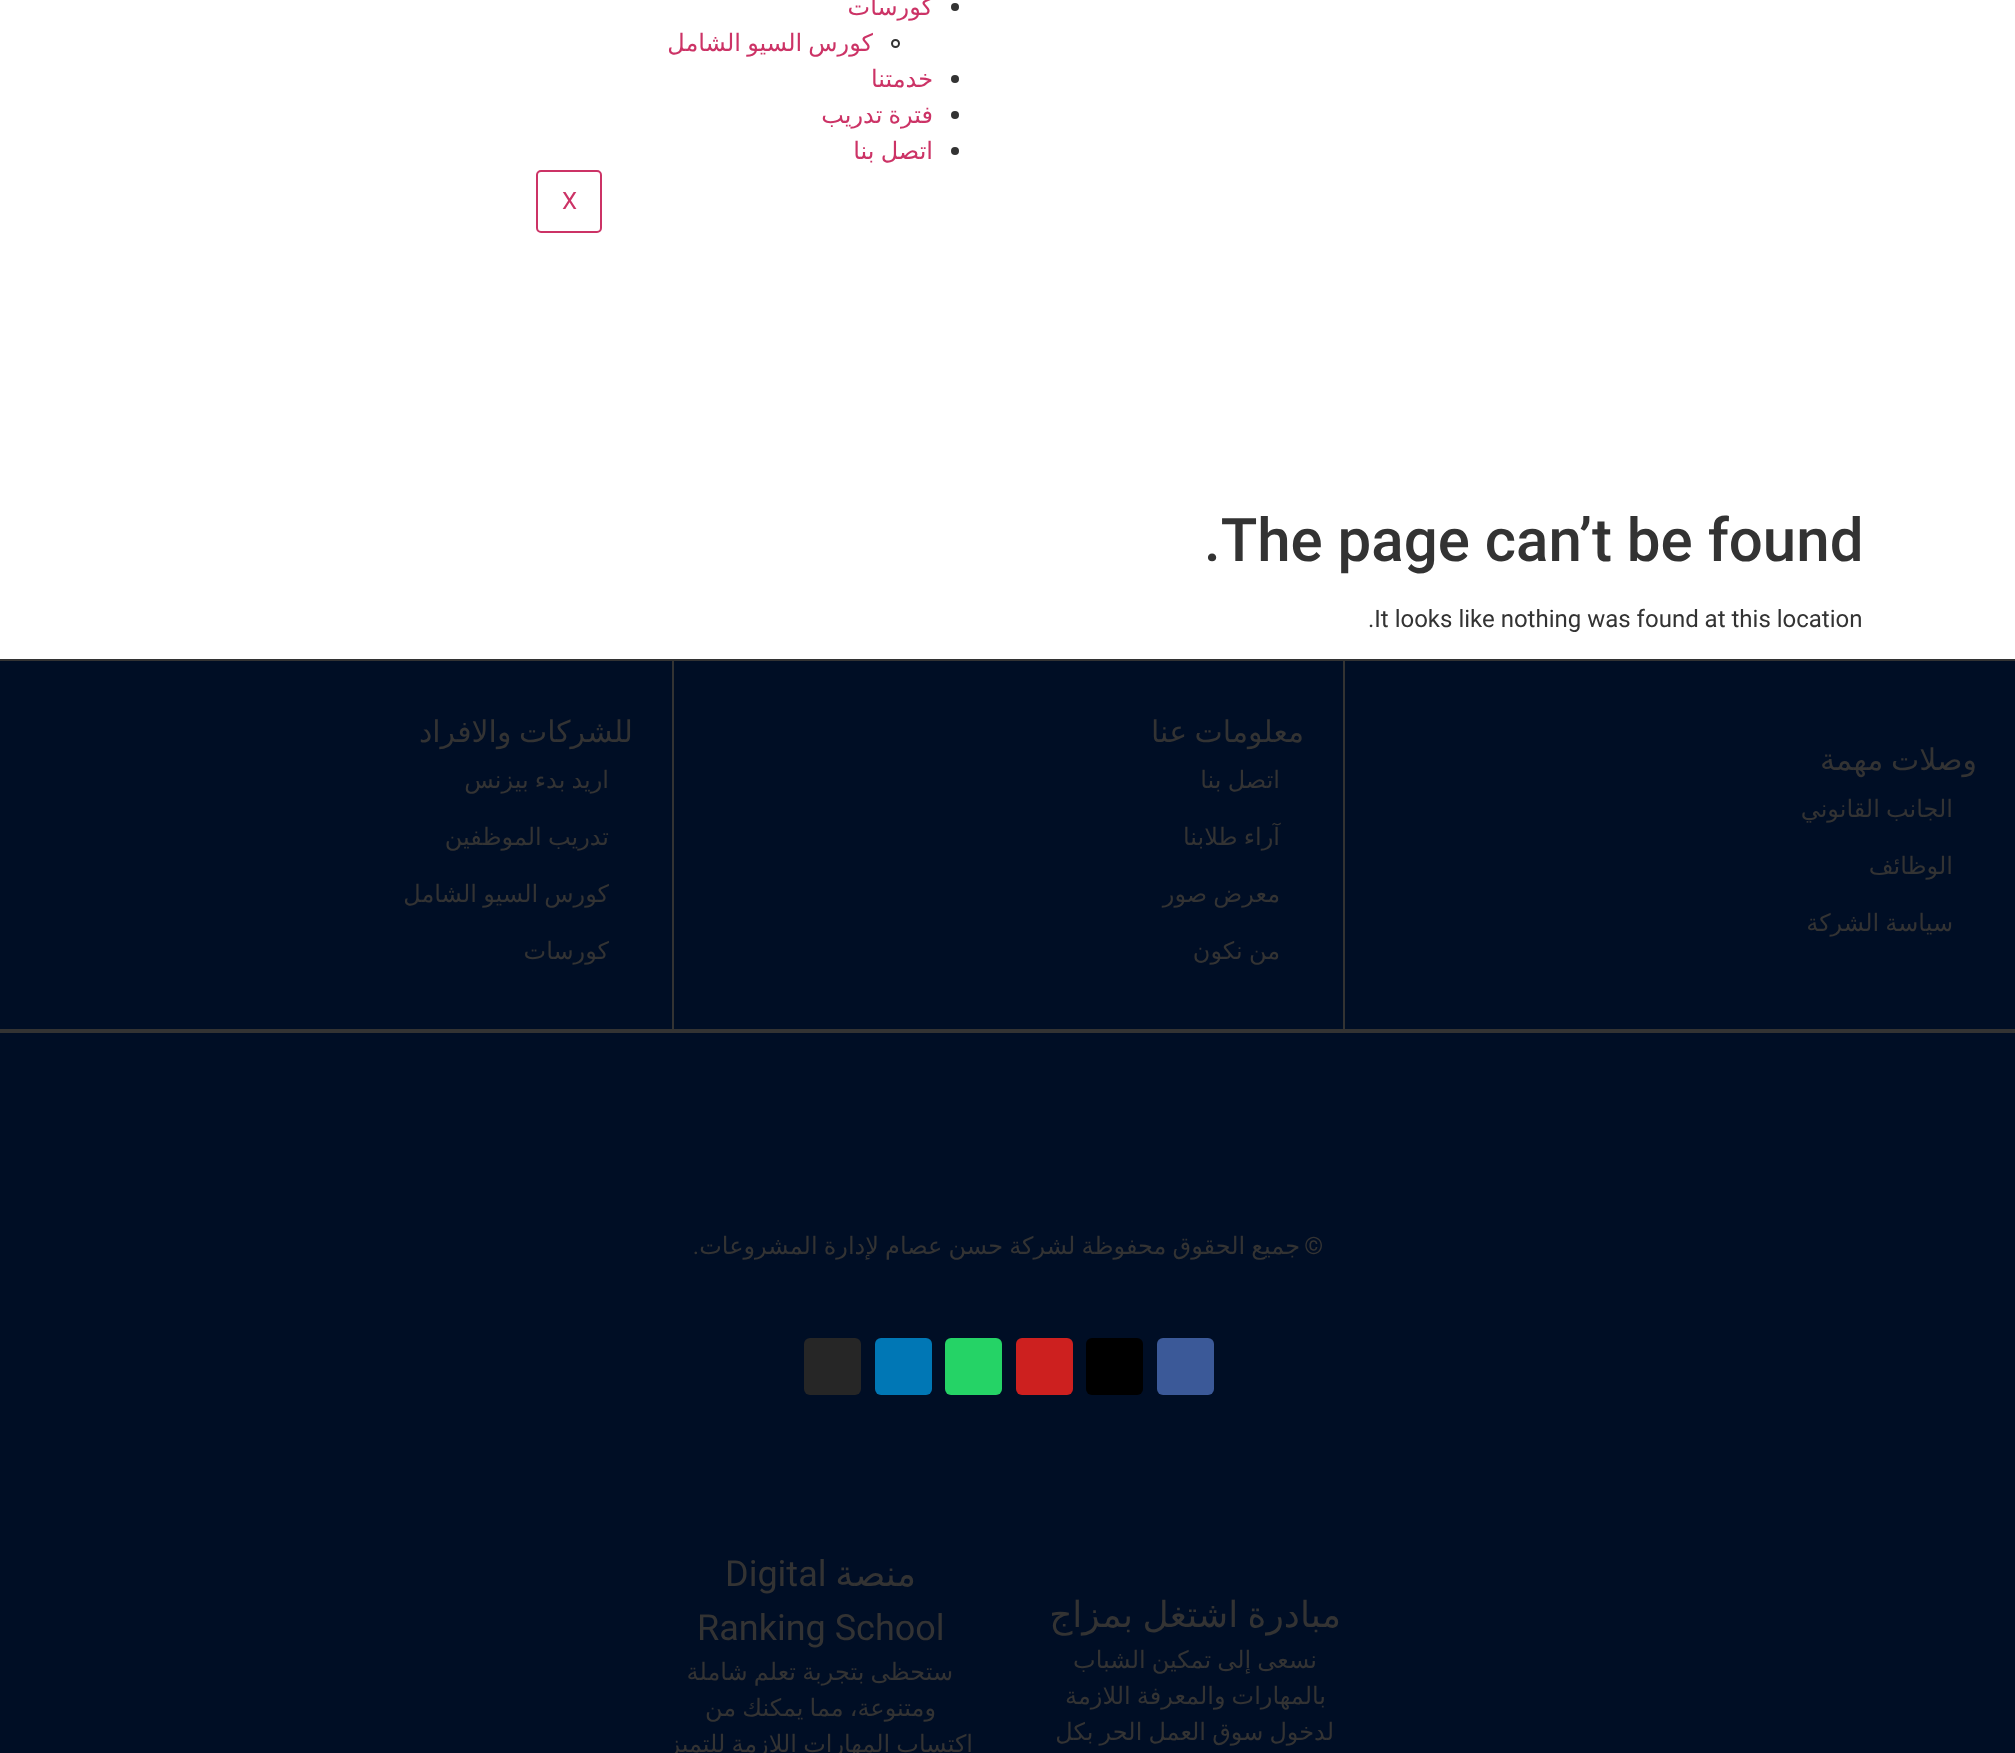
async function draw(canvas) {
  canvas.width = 2015;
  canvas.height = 1753;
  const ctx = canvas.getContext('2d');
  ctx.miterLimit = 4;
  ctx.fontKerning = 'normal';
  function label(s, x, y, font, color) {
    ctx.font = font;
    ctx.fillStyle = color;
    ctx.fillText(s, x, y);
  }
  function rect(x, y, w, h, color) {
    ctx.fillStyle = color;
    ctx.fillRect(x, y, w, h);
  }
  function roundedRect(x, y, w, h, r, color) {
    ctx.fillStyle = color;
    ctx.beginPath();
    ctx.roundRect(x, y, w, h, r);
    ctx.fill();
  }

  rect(0, 0, 2015, 1753, '#fff');
  ctx.fillStyle = '#333';
  ctx.beginPath();
  ctx.arc(955, 7, 4, 0, 2 * Math.PI);
  ctx.fill();
  ctx.direction = 'rtl';
  label('كورسات', 933, 15, '24px DejaVu Sans', '#c36');
  ctx.beginPath();
  ctx.arc(895.5, 43.5, 3.5, 0, 2 * Math.PI);
  ctx.strokeStyle = '#333';
  ctx.lineWidth = 2;
  ctx.stroke();
  ctx.wordSpacing = '-1.5px';
  label('كورس السيو الشامل', 873, 51, '24px DejaVu Sans', '#c36');
  ctx.fillStyle = '#333';
  ctx.beginPath();
  ctx.arc(955, 79, 4, 0, 2 * Math.PI);
  ctx.fill();
  ctx.wordSpacing = '0px';
  label('خدمتنا', 933, 87, '24px DejaVu Sans', '#c36');
  ctx.fillStyle = '#333';
  ctx.beginPath();
  ctx.arc(955, 115, 4, 0, 2 * Math.PI);
  ctx.fill();
  ctx.wordSpacing = '-1.5px';
  label('فترة تدريب', 933, 123, '24px DejaVu Sans', '#c36');
  ctx.fillStyle = '#333';
  ctx.beginPath();
  ctx.arc(955, 151, 4, 0, 2 * Math.PI);
  ctx.fill();
  label('اتصل بنا', 933, 159, '24px DejaVu Sans', '#c36');
  ctx.beginPath();
  ctx.roundRect(537, 171, 64, 61, 4);
  ctx.strokeStyle = '#c36';
  ctx.stroke();
  ctx.wordSpacing = '0px';
  ctx.direction = 'ltr';
  label('X', 562, 209, '24px Roboto', '#c36');
  label('.The page can’t be found', 1204, 561, '500 60px Roboto', '#333');
  label('.It looks like nothing was found at this location', 1368, 627, '24px Roboto', '#333');
  rect(0, 661, 2015, 368, '#000e25');
  rect(0, 659, 2015, 2, '#333');
  rect(0, 1029, 2015, 4, '#333');
  ctx.wordSpacing = '-2px';
  ctx.direction = 'rtl';
  label('وصلات مهمة', 1977, 770, '30px DejaVu Sans', '#333');
  ctx.wordSpacing = '-1.5px';
  label('الجانب القانوني', 1953, 817, '24px DejaVu Sans', '#333');
  ctx.wordSpacing = '0px';
  label('الوظائف', 1953, 874, '24px DejaVu Sans', '#333');
  ctx.wordSpacing = '-1.5px';
  label('سياسة الشركة', 1953, 931, '24px DejaVu Sans', '#333');
  rect(1343, 660, 2, 369, '#333');
  rect(672, 660, 2, 369, '#333');
  ctx.wordSpacing = '-2px';
  label('معلومات عنا', 1304, 742, '30px DejaVu Sans', '#333');
  ctx.wordSpacing = '-1.5px';
  label('اتصل بنا', 1280, 788, '24px DejaVu Sans', '#333');
  label('آراء طلابنا', 1280, 845, '24px DejaVu Sans', '#333');
  label('معرض صور', 1280, 902, '24px DejaVu Sans', '#333');
  label('من نكون', 1280, 959, '24px DejaVu Sans', '#333');
  ctx.wordSpacing = '-2px';
  label('للشركات والافراد', 633, 742, '30px DejaVu Sans', '#333');
  ctx.wordSpacing = '-1.5px';
  label('اريد بدء بيزنس', 609, 788, '24px DejaVu Sans', '#333');
  label('تدريب الموظفين', 609, 845, '24px DejaVu Sans', '#333');
  label('كورس السيو الشامل', 609, 902, '24px DejaVu Sans', '#333');
  ctx.wordSpacing = '0px';
  label('كورسات', 609, 959, '24px DejaVu Sans', '#333');
  rect(0, 1033, 2015, 720, '#000e25');
  label('©', 1323, 1254, '24px Roboto', '#333');
  ctx.wordSpacing = '-1.5px';
  label('جميع الحقوق محفوظة لشركة حسن عصام لإدارة المشروعات', 1300, 1254, '24px DejaVu Sans', '#333');
  ctx.wordSpacing = '0px';
  label('.', 699, 1254, '24px Roboto', '#333');
  roundedRect(1157, 1338, 57, 57, 6, '#3b5998');
  roundedRect(1086, 1338, 57, 57, 6, '#000');
  roundedRect(1016, 1338, 57, 57, 6, '#cd201f');
  roundedRect(945, 1338, 57, 57, 6, '#25d366');
  roundedRect(875, 1338, 57, 57, 6, '#0077b5');
  roundedRect(804, 1338, 57, 57, 6, '#262626');
  ctx.wordSpacing = '-2px';
  label('مبادرة اشتغل بمزاج', 1341, 1627, '36px DejaVu Sans', '#333');
  ctx.wordSpacing = '-1.5px';
  label('نسعى إلى تمكين الشباب', 1317, 1668, '24px DejaVu Sans', '#333');
  label('بالمهارات والمعرفة اللازمة', 1326, 1704, '24px DejaVu Sans', '#333');
  label('لدخول سوق العمل الحر بكل', 1334, 1740, '24px DejaVu Sans', '#333');
  ctx.wordSpacing = '0px';
  label('منصة', 916, 1586, '36px DejaVu Sans', '#333');
  ctx.direction = 'ltr';
  label('Digital', 725, 1586, '36px Roboto', '#333');
  label('Ranking School', 697, 1640, '36px Roboto', '#333');
  ctx.wordSpacing = '-1.5px';
  ctx.direction = 'rtl';
  label('ستحظى بتجربة تعلم شاملة', 953, 1680, '24px DejaVu Sans', '#333');
  label('ومتنوعة، مما يمكنك من', 936, 1716, '24px DejaVu Sans', '#333');
  label('اكتساب المهارات اللازمة للتميز', 973, 1752, '24px DejaVu Sans', '#333');
}

draw(document.querySelector('canvas'));
